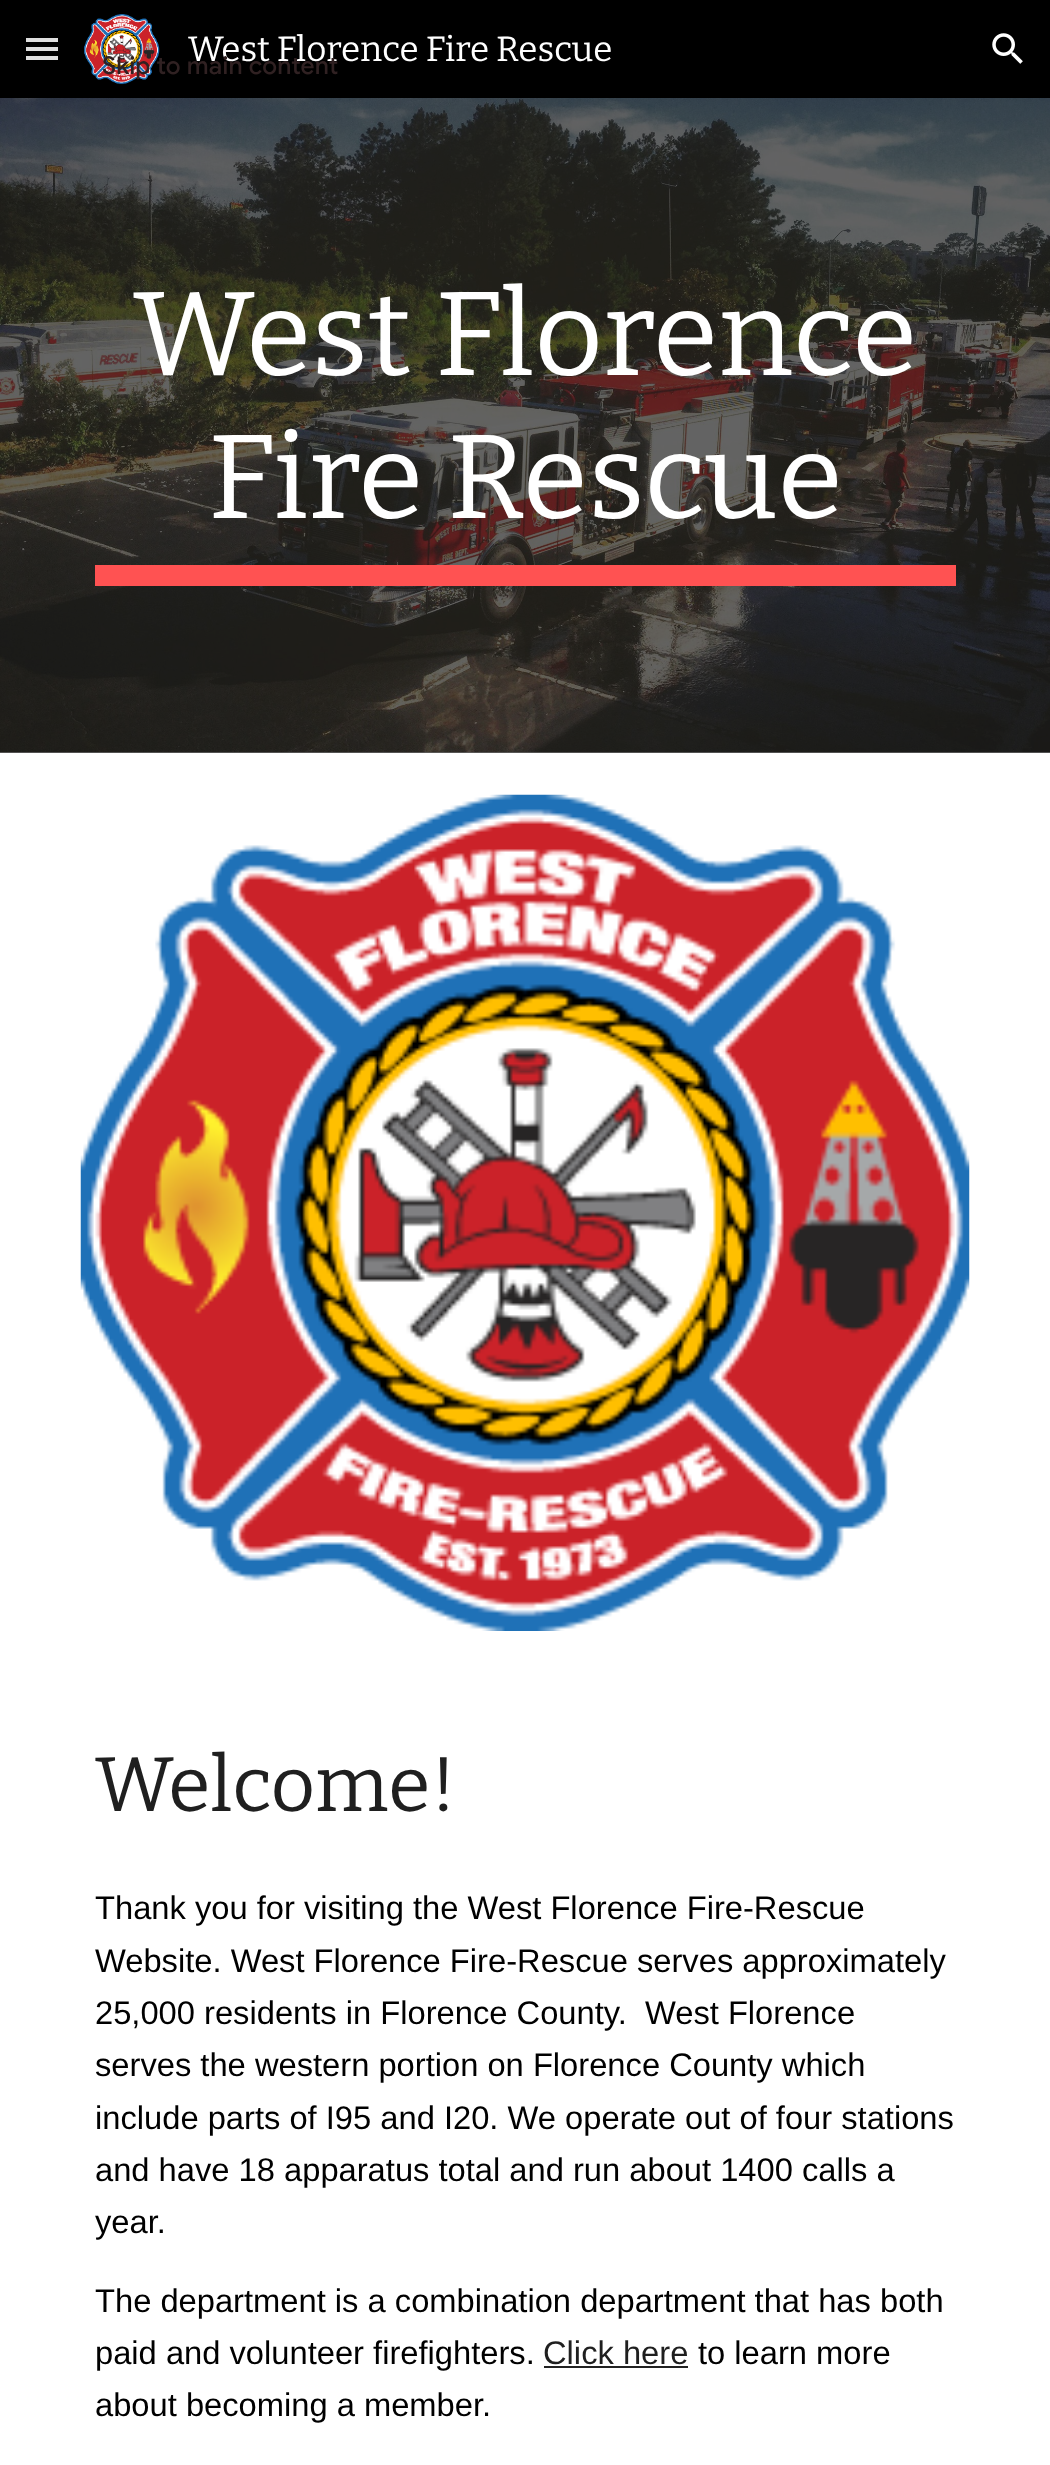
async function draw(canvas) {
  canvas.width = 1050;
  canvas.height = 2465;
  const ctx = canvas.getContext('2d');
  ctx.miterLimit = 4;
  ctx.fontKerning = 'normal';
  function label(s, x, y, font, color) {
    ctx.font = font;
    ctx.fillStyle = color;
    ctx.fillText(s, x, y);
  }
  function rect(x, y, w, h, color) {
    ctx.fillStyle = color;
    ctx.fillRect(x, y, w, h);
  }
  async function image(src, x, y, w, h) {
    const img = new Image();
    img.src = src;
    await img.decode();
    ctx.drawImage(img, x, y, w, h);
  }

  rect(0, 0, 1050, 2465, '#fff');
  rect(0, 752, 1050, 1, '#646464');
  rect(0, 0, 1050, 98, '#000');
  rect(26, 38, 32, 4, '#dfdfdf');
  rect(26, 47, 32, 4, '#dfdfdf');
  rect(26, 56, 32, 4, '#dfdfdf');
  await image('assets/img1.png', 84, 14, 76, 71);
  label('West Florence Fire Rescue', 188, 61, '35px Bitter', '#fff');
  await image('assets/img2.png', 992, 33, 31, 31);
  await image('assets/img3.png', 0, 98, 1050, 655);
  label('West Florence', 133, 375, '119px Bitter', '#fff');
  label('Fire Rescue', 208, 518, '119px Bitter', '#fff');
  rect(95, 565, 861, 21, '#ff5252');
  await image('assets/img4.png', 80, 794, 890, 837);
  label('Welcome!', 95, 1811, '77px Bitter', '#1f1f1f');
  label('Thank you for visiting the West Florence Fire-Rescue', 95, 1919, '32.7px Liberation Sans', '#000');
  label('Website. West Florence Fire-Rescue serves approximately', 95, 1972, '32.7px Liberation Sans', '#000');
  label('25,000 residents in Florence County.  West Florence', 95, 2024, '32.7px Liberation Sans', '#000');
  label('serves the western portion on Florence County which', 95, 2076, '32.7px Liberation Sans', '#000');
  label('include parts of I95 and I20. We operate out of four stations', 95, 2129, '32.7px Liberation Sans', '#000');
  label('and have 18 apparatus total and run about 1400 calls a', 95, 2181, '32.7px Liberation Sans', '#000');
  label('year.', 95, 2233, '32.7px Liberation Sans', '#000');
  label('The department is a combination department that has both', 95, 2312, '32.7px Liberation Sans', '#000');
  label('paid and volunteer firefighters.', 95, 2364, '32.7px Liberation Sans', '#000');
  label('Click here', 543, 2364, '32.7px Liberation Sans', '#1f1f1f');
  rect(544, 2366, 144, 2, '#212121');
  label('to learn more', 698, 2364, '32.7px Liberation Sans', '#000');
  label('about becoming a member.', 95, 2416, '32.7px Liberation Sans', '#000');
  ctx.letterSpacing = '0.25px';
  label('Skip to main content', 102, 74, '500 24.5px Google Sans', '#302122');
}

draw(document.querySelector('canvas'));
